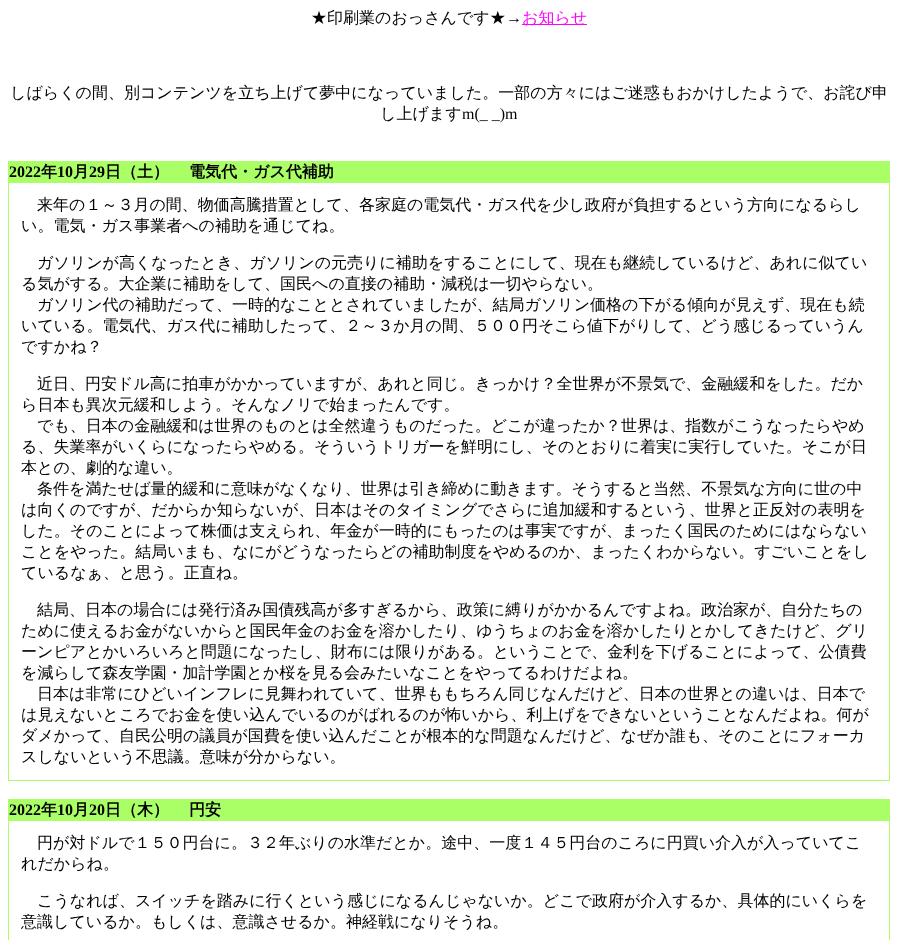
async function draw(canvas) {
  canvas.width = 898;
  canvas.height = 940;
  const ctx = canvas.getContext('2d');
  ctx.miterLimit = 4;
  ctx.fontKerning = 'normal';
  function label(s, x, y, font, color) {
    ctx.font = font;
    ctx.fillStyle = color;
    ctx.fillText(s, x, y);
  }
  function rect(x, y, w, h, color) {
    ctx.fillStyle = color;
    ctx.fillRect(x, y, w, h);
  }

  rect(0, 0, 898, 940, '#fff');
  label('★印刷業のおっさんです★', 311, 23, '500 16px WenQuanYi Zen Hei', '#000');
  label('→', 506, 23, '16px Liberation Serif', '#000');
  rect(522, 24, 65, 1, '#f0f');
  label('お知らせ', 522, 23, '500 16px WenQuanYi Zen Hei', '#f0f');
  label('しばらくの間、別コンテンツを立ち上げて夢中になっていました。一部の方々にはご迷惑もおかけしたようで、お詫び申', 10, 98, '500 16px WenQuanYi Zen Hei', '#000');
  label('し上げます', 380, 119, '500 16px WenQuanYi Zen Hei', '#000');
  label('m(_ _)m', 462, 119, '16px Liberation Serif', '#000');
  rect(8, 161, 882, 620, '#af6');
  label('2022', 9, 177, 'bold 16px Liberation Serif', '#000');
  label('年', 41, 177, 'bold 16px WenQuanYi Zen Hei', '#000');
  label('10', 57, 177, 'bold 16px Liberation Serif', '#000');
  label('月', 73, 177, 'bold 16px WenQuanYi Zen Hei', '#000');
  label('29', 89, 177, 'bold 16px Liberation Serif', '#000');
  label('日（土）', 105, 177, 'bold 16px WenQuanYi Zen Hei', '#000');
  label('電気代・ガス代補助', 189, 177, 'bold 16px WenQuanYi Zen Hei', '#000');
  rect(9, 183, 880, 597, '#fff');
  label('来年の１～３月の間、物価高騰措置として、各家庭の電気代・ガス代を少し政府が負担するという方向になるらし', 37, 210, '500 16px WenQuanYi Zen Hei', '#000');
  label('い。電気・ガス事業者への補助を通じてね。', 21, 231, '500 16px WenQuanYi Zen Hei', '#000');
  label('ガソリンが高くなったとき、ガソリンの元売りに補助をすることにして、現在も継続しているけど、あれに似てい', 37, 268, '500 16px WenQuanYi Zen Hei', '#000');
  label('る気がする。大企業に補助をして、国民への直接の補助・減税は一切やらない。', 21, 289, '500 16px WenQuanYi Zen Hei', '#000');
  label('ガソリン代の補助だって、一時的なこととされていましたが、結局ガソリン価格の下がる傾向が見えず、現在も続', 37, 310, '500 16px WenQuanYi Zen Hei', '#000');
  label('いている。電気代、ガス代に補助したって、２～３か月の間、５００円そこら値下がりして、どう感じるっていうん', 21, 331, '500 16px WenQuanYi Zen Hei', '#000');
  label('ですかね？', 21, 352, '500 16px WenQuanYi Zen Hei', '#000');
  label('近日、円安ドル高に拍車がかかっていますが、あれと同じ。きっかけ？全世界が不景気で、金融緩和をした。だか', 37, 389, '500 16px WenQuanYi Zen Hei', '#000');
  label('ら日本も異次元緩和しよう。そんなノリで始まったんです。', 21, 410, '500 16px WenQuanYi Zen Hei', '#000');
  label('でも、日本の金融緩和は世界のものとは全然違うものだった。どこが違ったか？世界は、指数がこうなったらやめ', 37, 431, '500 16px WenQuanYi Zen Hei', '#000');
  label('る、失業率がいくらになったらやめる。そういうトリガーを鮮明にし、そのとおりに着実に実行していた。そこが日', 21, 452, '500 16px WenQuanYi Zen Hei', '#000');
  label('本との、劇的な違い。', 21, 473, '500 16px WenQuanYi Zen Hei', '#000');
  label('条件を満たせば量的緩和に意味がなくなり、世界は引き締めに動きます。そうすると当然、不景気な方向に世の中', 37, 494, '500 16px WenQuanYi Zen Hei', '#000');
  label('は向くのですが、だからか知らないが、日本はそのタイミングでさらに追加緩和するという、世界と正反対の表明を', 21, 515, '500 16px WenQuanYi Zen Hei', '#000');
  label('した。そのことによって株価は支えられ、年金が一時的にもったのは事実ですが、まったく国民のためにはならない', 21, 536, '500 16px WenQuanYi Zen Hei', '#000');
  label('ことをやった。結局いまも、なにがどうなったらどの補助制度をやめるのか、まったくわからない。すごいことをし', 21, 557, '500 16px WenQuanYi Zen Hei', '#000');
  label('ているなぁ、と思う。正直ね。', 21, 578, '500 16px WenQuanYi Zen Hei', '#000');
  label('結局、日本の場合には発行済み国債残高が多すぎるから、政策に縛りがかかるんですよね。政治家が、自分たちの', 37, 615, '500 16px WenQuanYi Zen Hei', '#000');
  label('ために使えるお金がないからと国民年金のお金を溶かしたり、ゆうちょのお金を溶かしたりとかしてきたけど、グリ', 21, 636, '500 16px WenQuanYi Zen Hei', '#000');
  label('ーンピアとかいろいろと問題になったし、財布には限りがある。ということで、金利を下げることによって、公債費', 21, 657, '500 16px WenQuanYi Zen Hei', '#000');
  label('を減らして森友学園・加計学園とか桜を見る会みたいなことをやってるわけだよね。', 21, 678, '500 16px WenQuanYi Zen Hei', '#000');
  label('日本は非常にひどいインフレに見舞われていて、世界ももちろん同じなんだけど、日本の世界との違いは、日本で', 37, 699, '500 16px WenQuanYi Zen Hei', '#000');
  label('は見えないところでお金を使い込んでいるのがばれるのが怖いから、利上げをできないということなんだよね。何が', 21, 720, '500 16px WenQuanYi Zen Hei', '#000');
  label('ダメかって、自民公明の議員が国費を使い込んだことが根本的な問題なんだけど、なぜか誰も、そのことにフォーカ', 21, 741, '500 16px WenQuanYi Zen Hei', '#000');
  label('スしないという不思議。意味が分からない。', 21, 762, '500 16px WenQuanYi Zen Hei', '#000');
  rect(8, 799, 882, 141, '#af6');
  label('2022', 9, 815, 'bold 16px Liberation Serif', '#000');
  label('年', 41, 815, 'bold 16px WenQuanYi Zen Hei', '#000');
  label('10', 57, 815, 'bold 16px Liberation Serif', '#000');
  label('月', 73, 815, 'bold 16px WenQuanYi Zen Hei', '#000');
  label('20', 89, 815, 'bold 16px Liberation Serif', '#000');
  label('日（木）', 105, 815, 'bold 16px WenQuanYi Zen Hei', '#000');
  label('円安', 189, 815, 'bold 16px WenQuanYi Zen Hei', '#000');
  rect(9, 821, 880, 119, '#fff');
  label('円が対ドルで１５０円台に。３２年ぶりの水準だとか。途中、一度１４５円台のころに円買い介入が入っていてこ', 37, 848, '500 16px WenQuanYi Zen Hei', '#000');
  label('れだからね。', 21, 869, '500 16px WenQuanYi Zen Hei', '#000');
  label('こうなれば、スイッチを踏みに行くという感じになるんじゃないか。どこで政府が介入するか、具体的にいくらを', 37, 906, '500 16px WenQuanYi Zen Hei', '#000');
  label('意識しているか。もしくは、意識させるか。神経戦になりそうね。', 21, 927, '500 16px WenQuanYi Zen Hei', '#000');
}

draw(document.querySelector('canvas'));
